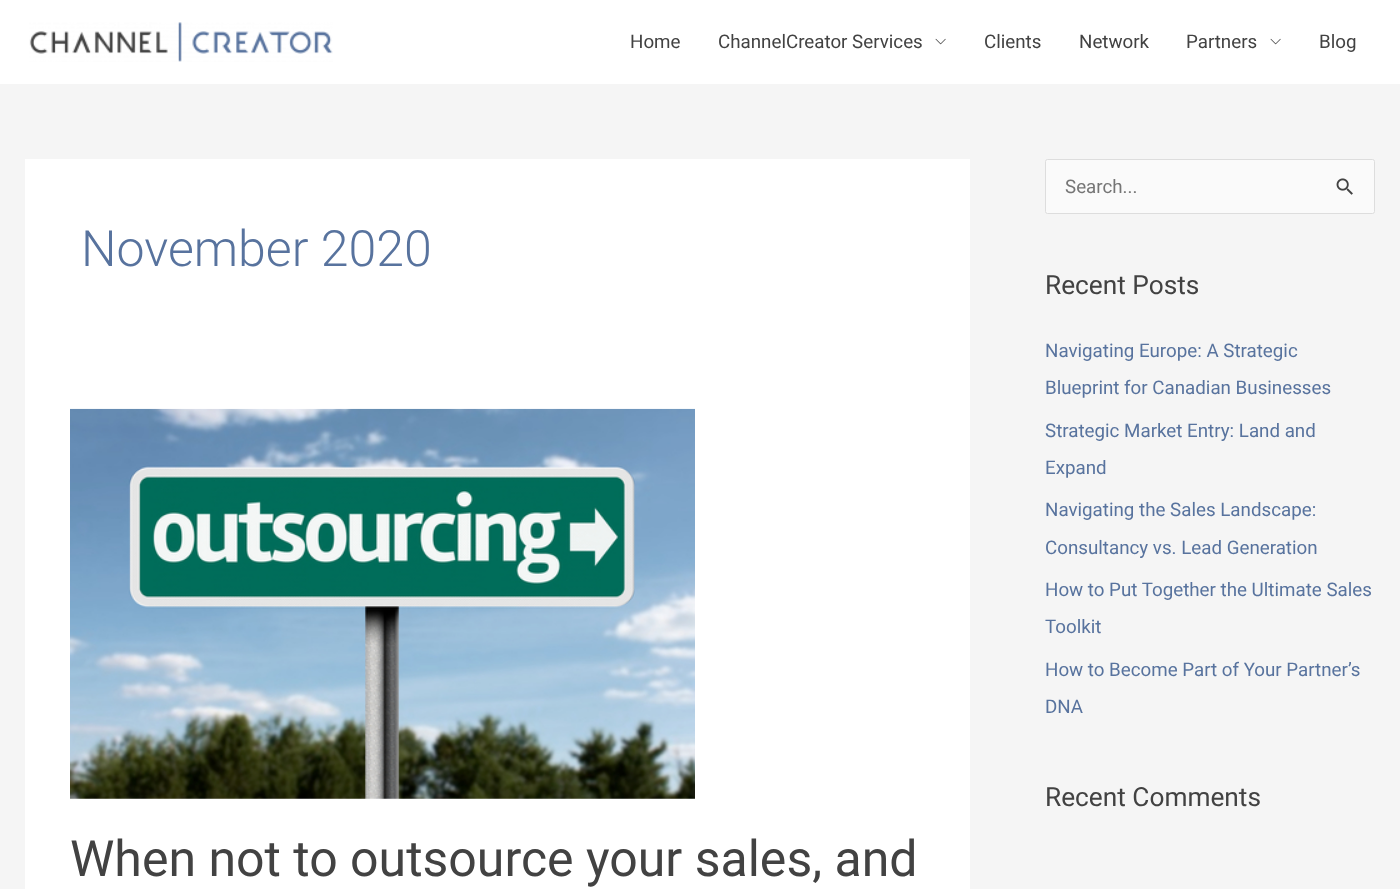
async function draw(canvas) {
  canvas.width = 1400;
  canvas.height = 889;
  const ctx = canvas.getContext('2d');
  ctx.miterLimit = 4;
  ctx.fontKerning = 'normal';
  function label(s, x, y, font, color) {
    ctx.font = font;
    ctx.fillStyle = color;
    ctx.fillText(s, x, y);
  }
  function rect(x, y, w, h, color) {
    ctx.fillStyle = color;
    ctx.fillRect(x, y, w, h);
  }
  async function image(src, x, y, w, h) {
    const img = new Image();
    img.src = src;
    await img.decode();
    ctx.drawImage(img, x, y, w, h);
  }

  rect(0, 0, 1400, 889, '#f5f5f5');
  rect(0, 0, 1400, 84, '#fff');
  await image('assets/img1.png', 29, 22, 304, 40);
  label('Home', 630, 48, '18.75px Roboto', '#424242');
  label('ChannelCreator Services', 718, 48, '18.75px Roboto', '#424242');
  await image('assets/img2.png', 935, 38, 11, 7);
  label('Clients', 984, 48, '18.75px Roboto', '#424242');
  label('Network', 1079, 48, '18.75px Roboto', '#424242');
  label('Partners', 1186, 48, '18.75px Roboto', '#424242');
  await image('assets/img2.png', 1270, 38, 11, 7);
  label('Blog', 1319, 48, '18.75px Roboto', '#424242');
  rect(25, 159, 945, 730, '#fff');
  label('November 2020', 81, 266, '300 50px Roboto', '#58739e');
  await image('assets/img3.png', 70, 408, 625, 391);
  label('When not to outsource your sales, and', 70, 876, '50px Roboto', '#424242');
  ctx.fillStyle = '#fafafa';
  ctx.beginPath();
  ctx.roundRect(1045.5, 159.5, 329, 54, 2);
  ctx.fill();
  ctx.strokeStyle = '#ddd';
  ctx.stroke();
  label('Search...', 1065, 193, '18.75px Roboto', '#757575');
  await image('assets/img4.png', 1336, 178, 17, 17);
  label('Recent Posts', 1045, 294, '26.25px Roboto', '#424242');
  label('Navigating Europe: A Strategic', 1045, 357, '18.75px Roboto', '#58739e');
  label('Blueprint for Canadian Businesses', 1045, 394, '18.75px Roboto', '#58739e');
  label('Strategic Market Entry: Land and', 1045, 437, '18.75px Roboto', '#58739e');
  label('Expand', 1045, 474, '18.75px Roboto', '#58739e');
  label('Navigating the Sales Landscape:', 1045, 516, '18.75px Roboto', '#58739e');
  label('Consultancy vs. Lead Generation', 1045, 554, '18.75px Roboto', '#58739e');
  label('How to Put Together the Ultimate Sales', 1045, 596, '18.75px Roboto', '#58739e');
  label('Toolkit', 1045, 633, '18.75px Roboto', '#58739e');
  label('How to Become Part of Your Partner’s', 1045, 676, '18.75px Roboto', '#58739e');
  label('DNA', 1045, 713, '18.75px Roboto', '#58739e');
  label('Recent Comments', 1045, 806, '26.25px Roboto', '#424242');
}

draw(document.querySelector('canvas'));
